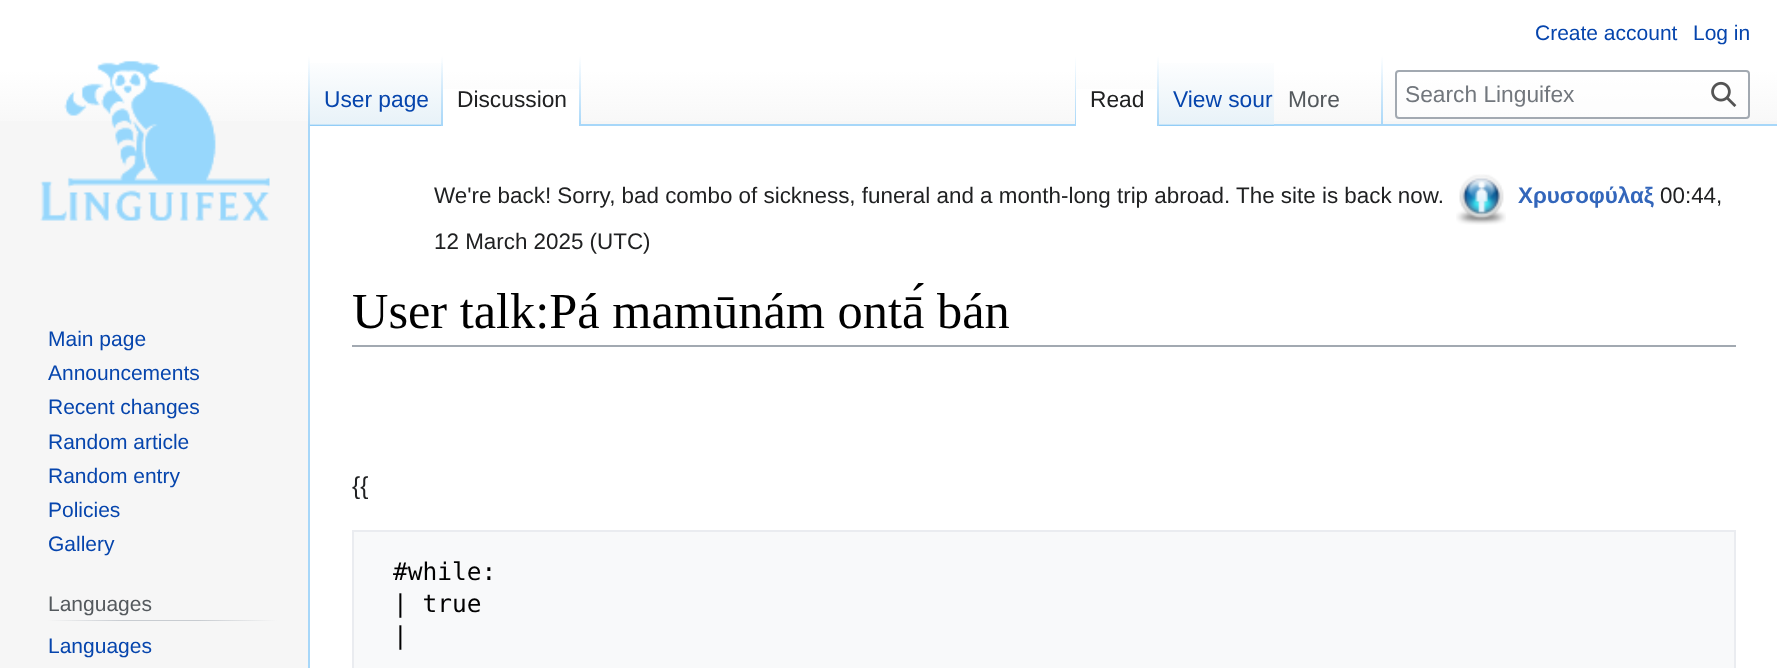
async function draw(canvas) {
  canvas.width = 1777;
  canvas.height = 668;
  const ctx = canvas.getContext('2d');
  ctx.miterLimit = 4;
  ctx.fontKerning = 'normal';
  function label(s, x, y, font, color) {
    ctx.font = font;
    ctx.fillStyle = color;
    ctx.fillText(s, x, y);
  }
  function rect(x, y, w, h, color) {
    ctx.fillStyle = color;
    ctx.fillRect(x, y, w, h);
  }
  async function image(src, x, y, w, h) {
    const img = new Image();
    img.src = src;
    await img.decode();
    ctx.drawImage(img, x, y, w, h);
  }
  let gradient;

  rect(0, 0, 1777, 668, '#f6f6f6');
  gradient = ctx.createLinearGradient(889, 0, 889, 140);
  gradient.addColorStop(0.5, '#fff');
  gradient.addColorStop(1, '#f6f6f6');
  ctx.fillStyle = gradient;
  ctx.fillRect(0, 0, 1777, 121);
  label('Create account', 1535, 40, '21px Liberation Sans', '#0645ad');
  label('Log in', 1693, 40, '21px Liberation Sans', '#0645ad');
  rect(308, 124, 2, 544, '#a7d7f9');
  gradient = ctx.createLinearGradient(309, 56, 309, 126);
  gradient.addColorStop(0, '#a7d7f900');
  gradient.addColorStop(1, '#a7d7f9');
  ctx.fillStyle = gradient;
  ctx.fillRect(308, 56, 2, 70);
  gradient = ctx.createLinearGradient(376, 126, 376, 56);
  gradient.addColorStop(0, '#77c1f6');
  gradient.addColorStop(0.03, '#e8f2f8');
  gradient.addColorStop(1, '#fff');
  ctx.fillStyle = gradient;
  ctx.fillRect(310, 63, 133, 63);
  gradient = ctx.createLinearGradient(442, 56, 442, 126);
  gradient.addColorStop(0, '#a7d7f900');
  gradient.addColorStop(1, '#a7d7f9');
  ctx.fillStyle = gradient;
  ctx.fillRect(441, 56, 2, 70);
  label('User page', 324, 107, '22.75px Liberation Sans', '#0645ad');
  rect(443, 89, 136, 37, '#fff');
  gradient = ctx.createLinearGradient(580, 56, 580, 126);
  gradient.addColorStop(0, '#fff');
  gradient.addColorStop(1, '#a7d7f9');
  ctx.fillStyle = gradient;
  ctx.fillRect(579, 56, 2, 70);
  label('Discussion', 457, 107, '22.75px Liberation Sans', '#202122');
  rect(581, 124, 1196, 2, '#a7d7f9');
  gradient = ctx.createLinearGradient(1075, 56, 1075, 126);
  gradient.addColorStop(0, '#a7d7f900');
  gradient.addColorStop(1, '#a7d7f9');
  ctx.fillStyle = gradient;
  ctx.fillRect(1075, 56, 1, 70);
  rect(1076, 89, 81, 37, '#fff');
  gradient = ctx.createLinearGradient(1158, 56, 1158, 126);
  gradient.addColorStop(0, '#fff');
  gradient.addColorStop(1, '#a7d7f9');
  ctx.fillStyle = gradient;
  ctx.fillRect(1157, 56, 2, 70);
  label('Read', 1090, 107, '22.75px Liberation Sans', '#202122');
  gradient = ctx.createLinearGradient(1216, 126, 1216, 56);
  gradient.addColorStop(0, '#77c1f6');
  gradient.addColorStop(0.03, '#e8f2f8');
  gradient.addColorStop(1, '#fff');
  ctx.fillStyle = gradient;
  ctx.fillRect(1159, 63, 115, 63);
  label('View sour', 1173, 107, '22.75px Liberation Sans', '#0645ad');
  gradient = ctx.createLinearGradient(1382, 56, 1382, 126);
  gradient.addColorStop(0, '#a7d7f900');
  gradient.addColorStop(1, '#a7d7f9');
  ctx.fillStyle = gradient;
  ctx.fillRect(1381, 56, 2, 70);
  label('More', 1288, 107, '22.75px Liberation Sans', '#54595d');
  ctx.fillStyle = '#ffffff80';
  ctx.beginPath();
  ctx.roundRect(1396, 71, 353, 47, 3);
  ctx.fill();
  ctx.strokeStyle = '#a2a9b1';
  ctx.lineWidth = 2;
  ctx.stroke();
  label('Search Linguifex', 1405, 102, '22.75px Liberation Sans', '#72777d');
  await image('assets/img1.png', 1711, 81, 26, 26);
  await image('assets/img2.png', 40, 60, 230, 161);
  label('Main page', 48, 346, '21px Liberation Sans', '#0645ad');
  label('Announcements', 48, 380, '21px Liberation Sans', '#0645ad');
  label('Recent changes', 48, 414, '21px Liberation Sans', '#0645ad');
  label('Random article', 48, 449, '21px Liberation Sans', '#0645ad');
  label('Random entry', 48, 483, '21px Liberation Sans', '#0645ad');
  label('Policies', 48, 517, '21px Liberation Sans', '#0645ad');
  label('Gallery', 48, 551, '21px Liberation Sans', '#0645ad');
  gradient = ctx.createLinearGradient(47, 620, 277, 620);
  gradient.addColorStop(0, '#f6f6f6');
  gradient.addColorStop(0.33, '#c8ccd1');
  gradient.addColorStop(0.66, '#c8ccd1');
  gradient.addColorStop(1, '#f6f6f6');
  ctx.fillStyle = gradient;
  ctx.fillRect(47, 620, 230, 1);
  label('Languages', 48, 611, '21px Liberation Sans', '#54595d');
  label('Languages', 48, 653, '21px Liberation Sans', '#0645ad');
  rect(310, 126, 1467, 542, '#fff');
  label('We\'re back! Sorry, bad combo of sickness, funeral and a month-long trip abroad. The site is back now.', 434, 203, '22.4px Liberation Sans', '#202122');
  await image('assets/img3.png', 1456, 174, 50, 51);
  label('Χρυσοφύλαξ', 1518, 203, 'bold 22.4px Liberation Sans', '#36b');
  label('00:44,', 1660, 203, '22.4px Liberation Sans', '#202122');
  label('12 March 2025 (UTC)', 434, 249, '22.4px Liberation Sans', '#202122');
  rect(352, 345, 1384, 2, '#a2a9b1');
  label('User talk:Pá mamūnám ontā́ bán', 352, 328, '50.4px Liberation Serif', '#000');
  label('{{', 352, 494, '24.5px Liberation Sans', '#202122');
  ctx.fillStyle = '#f8f9fa';
  ctx.beginPath();
  ctx.rect(353, 531, 1382, 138);
  ctx.fill();
  ctx.strokeStyle = '#eaecf0';
  ctx.stroke();
  label('#while:', 393, 580, '24.5px DejaVu Sans Mono', '#000');
  label('| true', 393, 612, '24.5px DejaVu Sans Mono', '#000');
  label('|', 393, 644, '24.5px DejaVu Sans Mono', '#000');
}

draw(document.querySelector('canvas'));
